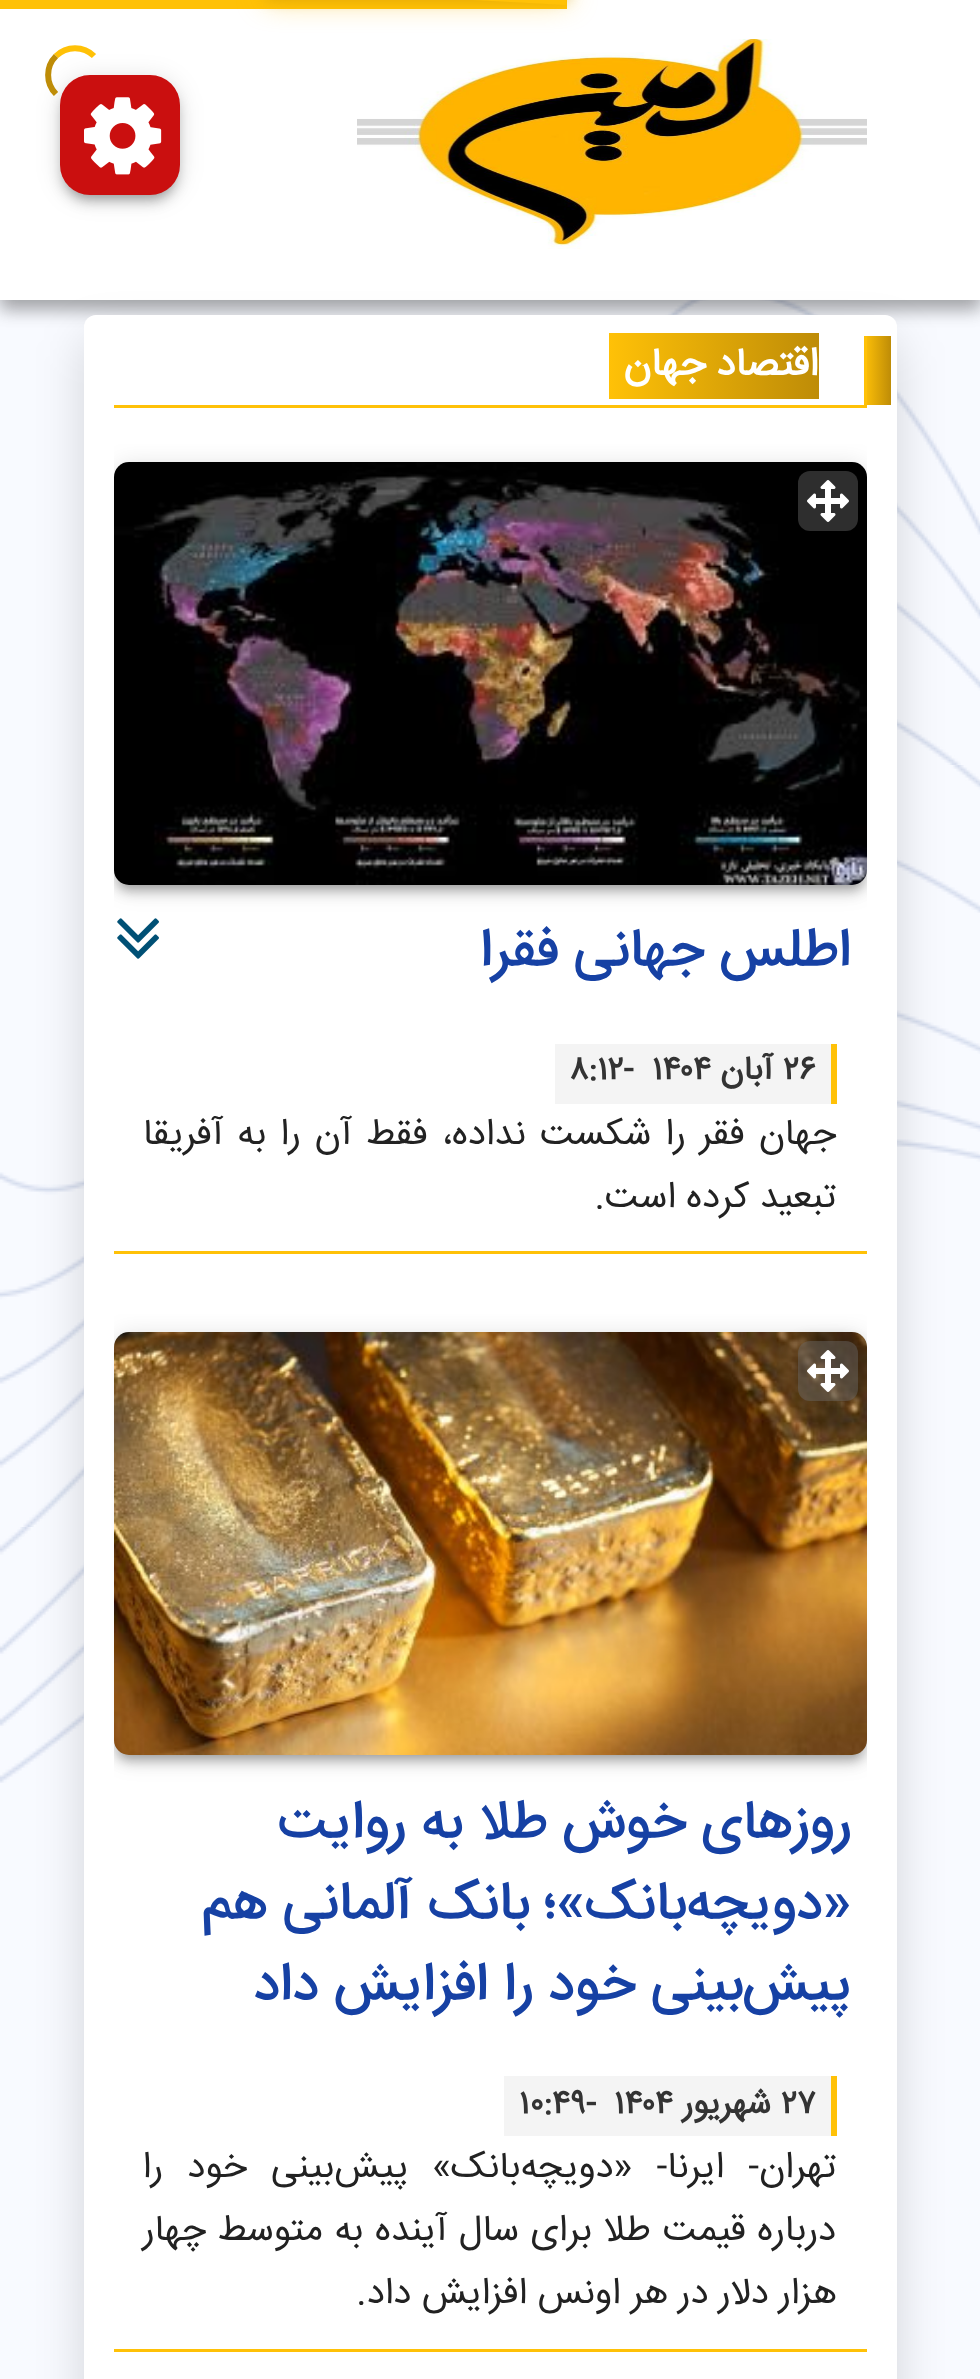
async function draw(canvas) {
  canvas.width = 980;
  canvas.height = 2379;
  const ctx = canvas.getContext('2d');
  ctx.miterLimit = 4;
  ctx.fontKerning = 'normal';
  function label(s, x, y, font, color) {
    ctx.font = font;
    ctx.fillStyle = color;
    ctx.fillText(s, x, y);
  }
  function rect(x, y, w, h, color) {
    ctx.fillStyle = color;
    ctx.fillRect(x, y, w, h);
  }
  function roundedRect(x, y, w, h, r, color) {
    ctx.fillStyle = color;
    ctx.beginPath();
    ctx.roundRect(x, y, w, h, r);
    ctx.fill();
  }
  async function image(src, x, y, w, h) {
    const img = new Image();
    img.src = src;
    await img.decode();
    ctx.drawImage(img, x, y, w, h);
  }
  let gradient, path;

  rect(0, 0, 980, 2379, '#f8faff');
  await image('assets/img1.png', 0, 300, 980, 1483);
  ctx.fillStyle = '#0000003b';
  ctx.filter = 'blur(9px)';
  ctx.beginPath();
  ctx.rect(0, 9, 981, 300);
  ctx.fill();
  ctx.filter = 'none';
  ctx.fillStyle = '#00000029';
  ctx.filter = 'blur(9px)';
  ctx.beginPath();
  ctx.rect(0, 9, 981, 300);
  ctx.fill();
  ctx.filter = 'none';
  rect(0, 0, 980, 300, '#fff');
  await image('assets/img2.png', 357, 39, 510, 210);
  rect(0, 0, 567, 9, '#ffc107');
  ctx.save();
  path = new Path2D('M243 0H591V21H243ZM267.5-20L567-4L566.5 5L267-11Z');
  ctx.clip(path, 'evenodd');
  ctx.fillStyle = '#be8c07';
  ctx.filter = 'blur(7.5px)';
  ctx.beginPath();
  ctx.rect(267, -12, 300, 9);
  ctx.fill();
  ctx.filter = 'none';
  ctx.restore();
  ctx.save();
  path = new Path2D('M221 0H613V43H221ZM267.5-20L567-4L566.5 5L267-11Z');
  ctx.clip(path, 'evenodd');
  ctx.filter = 'blur(15px)';
  ctx.beginPath();
  ctx.rect(267, -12, 300, 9);
  ctx.fill();
  ctx.filter = 'none';
  ctx.restore();
  ctx.fillStyle = '#0000001f';
  ctx.filter = 'blur(12px)';
  ctx.beginPath();
  ctx.roundRect(60, 78, 120, 120, 30);
  ctx.fill();
  ctx.filter = 'none';
  path = new Path2D('M56 56C66.5 45.5 83.5 45.5 94 56');
  ctx.strokeStyle = '#ffc107';
  ctx.lineWidth = 6;
  ctx.stroke(path);
  ctx.fillStyle = '#00000033';
  ctx.filter = 'blur(4.5px)';
  ctx.beginPath();
  ctx.roundRect(66, 90, 108, 108, 24);
  ctx.fill();
  ctx.filter = 'none';
  ctx.fillStyle = '#00000024';
  ctx.filter = 'blur(6px)';
  ctx.beginPath();
  ctx.roundRect(60, 84, 120, 120, 30);
  ctx.fill();
  ctx.filter = 'none';
  path = new Path2D('M56 94C45.5 83.5 45.5 66.5 56 56');
  ctx.strokeStyle = '#be8c07';
  ctx.stroke(path);
  roundedRect(60, 75, 120, 120, 30, '#ca0f0f');
  await image('assets/img3.png', 84, 97, 78, 78);
  ctx.fillStyle = '#00000026';
  ctx.filter = 'blur(24px)';
  ctx.beginPath();
  ctx.roundRect(84, 339, 813, 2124, 12);
  ctx.fill();
  ctx.filter = 'none';
  roundedRect(84, 315, 813, 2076, 12, '#fff');
  rect(114, 405, 753, 3, '#ffc107');
  gradient = ctx.createLinearGradient(609, 366, 819, 366);
  gradient.addColorStop(0, '#ffc107');
  gradient.addColorStop(1, '#be8c07');
  ctx.fillStyle = gradient;
  ctx.fillRect(609, 333, 210, 66);
  gradient = ctx.createLinearGradient(864, 371, 891, 371);
  gradient.addColorStop(0, '#ffc107');
  gradient.addColorStop(1, '#be8c07');
  ctx.fillStyle = gradient;
  ctx.fillRect(864, 336, 27, 69);
  roundedRect(864, 336, 3, 69, 1.5, '#ffc107');
  ctx.direction = 'rtl';
  label('اقتصاد جهان', 818, 375, 'bold 39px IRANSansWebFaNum', '#fff');
  rect(114, 1251, 753, 3, '#ffc107');
  ctx.save();
  ctx.beginPath();
  ctx.rect(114, 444, 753, 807);
  ctx.clip();
  ctx.fillStyle = '#0000001f';
  ctx.filter = 'blur(12px)';
  ctx.beginPath();
  ctx.roundRect(114, 465, 753, 423, 15);
  ctx.fill();
  ctx.filter = 'none';
  ctx.fillStyle = '#00000024';
  ctx.filter = 'blur(6px)';
  ctx.beginPath();
  ctx.roundRect(114, 471, 753, 423, 15);
  ctx.fill();
  ctx.filter = 'none';
  ctx.restore();
  ctx.fillStyle = '#00000033';
  ctx.filter = 'blur(4.5px)';
  ctx.beginPath();
  ctx.roundRect(120, 477, 741, 411, 9);
  ctx.fill();
  ctx.filter = 'none';
  await image('assets/img4.png', 114, 462, 753, 423);
  roundedRect(798, 471, 60, 60, 12, '#2e2e2e');
  await image('assets/img5.png', 807, 480, 42, 42);
  label('اطلس جهانی فقرا', 851, 965, '500 54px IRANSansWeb', '#1641a4');
  await image('assets/img6.png', 117, 918, 42, 41);
  rect(555, 1044, 276, 60, '#f4f4f4');
  ctx.direction = 'ltr';
  label('۲۶', 783, 1079, 'bold 33px IRANSansWebFaNum', '#333');
  rect(831, 1044, 6, 60, '#ffc107');
  ctx.direction = 'rtl';
  label('آبان', 773, 1079, 'bold 33px IRANSansWebFaNum', '#333');
  ctx.direction = 'ltr';
  label('۱۴۰۴', 652, 1079, 'bold 33px IRANSansWebFaNum', '#333');
  label('۸:۱۲-', 569, 1079, 'bold 33px IRANSansWebFaNum', '#333');
  ctx.wordSpacing = '3.75px';
  ctx.direction = 'rtl';
  label('جهان فقر را شکست نداده، فقط آن را به آفریقا', 836, 1144, '36.7px IRANSansWebFaNum', '#222');
  ctx.wordSpacing = '0px';
  label('تبعید کرده است.', 836, 1207, '36.7px IRANSansWebFaNum', '#222');
  rect(114, 2349, 753, 3, '#ffc107');
  ctx.save();
  ctx.beginPath();
  ctx.rect(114, 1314, 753, 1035);
  ctx.clip();
  ctx.fillStyle = '#0000001f';
  ctx.filter = 'blur(12px)';
  ctx.beginPath();
  ctx.roundRect(114, 1335, 753, 423, 15);
  ctx.fill();
  ctx.filter = 'none';
  ctx.fillStyle = '#00000024';
  ctx.filter = 'blur(6px)';
  ctx.beginPath();
  ctx.roundRect(114, 1341, 753, 423, 15);
  ctx.fill();
  ctx.filter = 'none';
  ctx.restore();
  ctx.fillStyle = '#00000033';
  ctx.filter = 'blur(4.5px)';
  ctx.beginPath();
  ctx.roundRect(120, 1347, 741, 411, 9);
  ctx.fill();
  ctx.filter = 'none';
  await image('assets/img8.png', 114, 1332, 753, 423);
  ctx.save();
  ctx.beginPath();
  ctx.rect(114, 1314, 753, 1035);
  ctx.clip();
  path = new Path2D('M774 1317H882V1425H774ZM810 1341H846C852.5 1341 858 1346.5 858 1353V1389C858 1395.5 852.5 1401 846 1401H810C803.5 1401 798 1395.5 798 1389V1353C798 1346.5 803.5 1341 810 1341Z');
  ctx.clip(path, 'evenodd');
  ctx.fillStyle = '#0000004d';
  ctx.filter = 'blur(7.5px)';
  ctx.beginPath();
  ctx.roundRect(798, 1341, 60, 60, 12);
  ctx.fill();
  ctx.filter = 'none';
  ctx.restore();
  roundedRect(798, 1341, 60, 60, 12, '#5b5b5b80');
  await image('assets/img7.png', 807, 1350, 42, 42);
  label('روزهای خوش طلا به روایت', 851, 1837, '500 54px IRANSansWeb', '#1641a4');
  label('«دویچه‌بانک»؛ بانک آلمانی هم', 851, 1918, '500 54px IRANSansWeb', '#1641a4');
  label('پیش‌بینی خود را افزایش داد', 851, 1999, '500 54px IRANSansWeb', '#1641a4');
  rect(504, 2076, 327, 60, '#f4f4f4');
  ctx.direction = 'ltr';
  label('۲۷', 781, 2113, 'bold 33px IRANSansWebFaNum', '#333');
  rect(831, 2076, 6, 60, '#ffc107');
  ctx.direction = 'rtl';
  label('شهریور', 771, 2113, 'bold 33px IRANSansWebFaNum', '#333');
  ctx.direction = 'ltr';
  label('۱۴۰۴', 614, 2113, 'bold 33px IRANSansWebFaNum', '#333');
  label('۱۰:۴۹-', 519, 2113, 'bold 33px IRANSansWebFaNum', '#333');
  ctx.wordSpacing = '14px';
  ctx.direction = 'rtl';
  label('تهران- ایرنا- «دویچه‌بانک» پیش‌بینی خود را', 836, 2177, '36.7px IRANSansWebFaNum', '#222');
  ctx.wordSpacing = '1.25px';
  label('درباره قیمت طلا برای سال آینده به متوسط چهار', 836, 2240, '36.7px IRANSansWebFaNum', '#222');
  ctx.wordSpacing = '0px';
  label('هزار دلار در هر اونس افزایش داد.', 837, 2303, '36.7px IRANSansWebFaNum', '#222');
}

draw(document.querySelector('canvas'));
